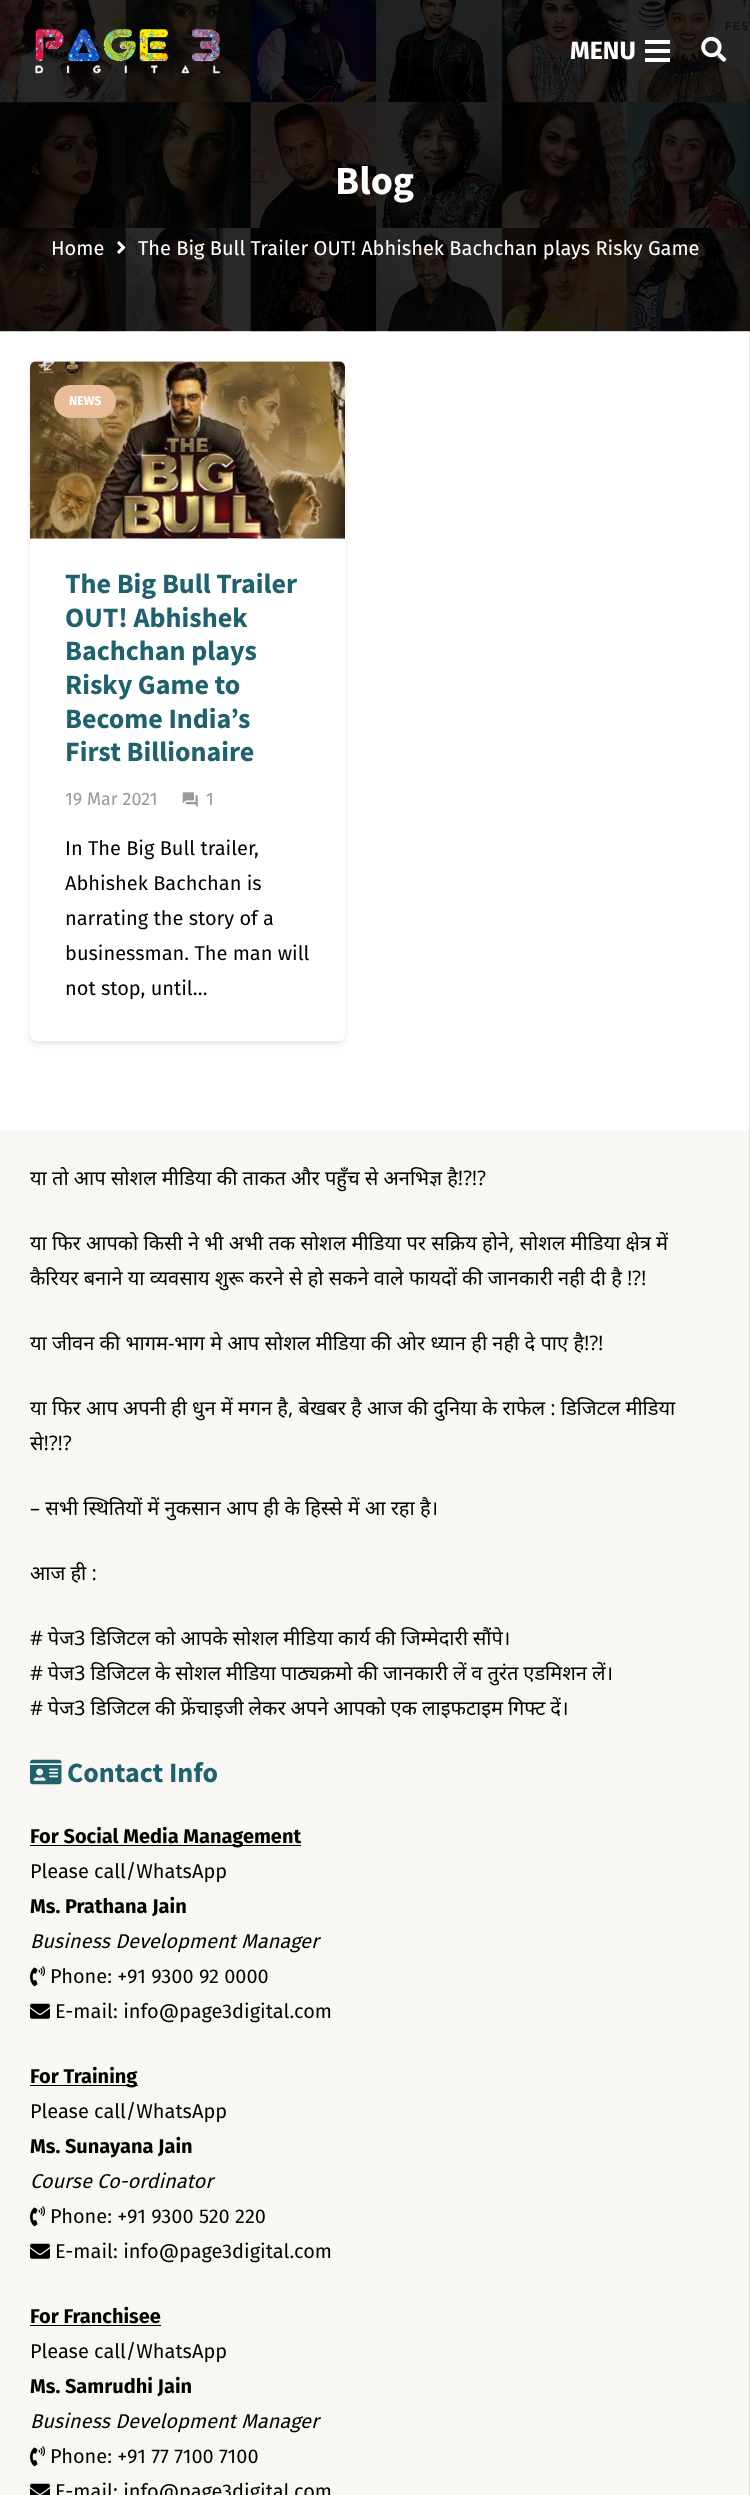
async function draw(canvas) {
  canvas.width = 750;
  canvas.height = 2495;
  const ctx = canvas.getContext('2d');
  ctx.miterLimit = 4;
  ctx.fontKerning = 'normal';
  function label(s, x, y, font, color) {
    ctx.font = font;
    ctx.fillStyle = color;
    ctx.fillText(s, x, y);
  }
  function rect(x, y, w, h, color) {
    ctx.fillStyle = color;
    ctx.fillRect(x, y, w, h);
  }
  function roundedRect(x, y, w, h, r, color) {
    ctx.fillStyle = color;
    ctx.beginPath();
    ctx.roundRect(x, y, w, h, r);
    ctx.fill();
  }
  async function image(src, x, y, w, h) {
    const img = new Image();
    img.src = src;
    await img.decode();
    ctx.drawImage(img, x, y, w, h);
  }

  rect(0, 0, 750, 2495, '#fff');
  await image('assets/img3.png', 0, 0, 750, 332);
  await image('assets/img1.png', 35, 29, 185, 45);
  label('MENU', 570, 59, 'bold 25px Fira Sans', '#fff');
  rect(645, 49, 25, 4, '#fff');
  rect(645, 40, 25, 4, '#fff');
  rect(645, 58, 25, 4, '#fff');
  rect(0, 1131, 750, 1364, '#f8f7f3');
  rect(749, 0, 1, 2495, '#00000014');
  await image('assets/img2.png', 701, 36, 26, 26);
  label('Blog', 335, 194, 'bold 40px Source Sans Pro', '#fff');
  label('Home', 51, 255, '20px Fira Sans', '#fff');
  await image('assets/img4.png', 117, 241, 9, 13);
  label('The Big Bull Trailer OUT! Abhishek Bachchan plays Risky Game', 138, 255, '20px Fira Sans', '#fff');
  ctx.fillStyle = '#0000001a';
  ctx.filter = 'blur(3px)';
  ctx.beginPath();
  ctx.roundRect(30, 364, 315, 680, 6);
  ctx.fill();
  ctx.filter = 'none';
  ctx.filter = 'blur(0.5px)';
  ctx.beginPath();
  ctx.roundRect(30, 361, 315, 680, 6);
  ctx.fill();
  ctx.filter = 'none';
  roundedRect(30, 361, 315, 680, 6, '#fff');
  await image('assets/img5.png', 30, 361, 315, 178);
  roundedRect(54, 385, 62, 33, 16.5, '#e9bc99');
  label('NEWS', 69, 405, 'bold 12.5px Fira Sans', '#fff');
  label('The Big Bull Trailer', 65, 593, 'bold 28px Source Sans Pro', '#1f626e');
  label('OUT! Abhishek', 65, 627, 'bold 28px Source Sans Pro', '#1f626e');
  label('Bachchan plays', 65, 660, 'bold 28px Source Sans Pro', '#1f626e');
  label('Risky Game to', 65, 694, 'bold 28px Source Sans Pro', '#1f626e');
  label('Become India’s', 65, 728, 'bold 28px Source Sans Pro', '#1f626e');
  label('First Billionaire', 65, 761, 'bold 28px Source Sans Pro', '#1f626e');
  label('19 Mar 2021', 65, 805, '18px Fira Sans', '#999');
  await image('assets/img6.png', 182, 792, 16, 15);
  label('1', 206, 805, '18px Fira Sans', '#999');
  label('In The Big Bull trailer,', 65, 855, '20px Fira Sans', '#000');
  label('Abhishek Bachchan is', 65, 890, '20px Fira Sans', '#000');
  label('narrating the story of a', 65, 925, '20px Fira Sans', '#000');
  label('businessman. The man will', 65, 960, '20px Fira Sans', '#000');
  label('not stop, until…', 65, 995, '20px Fira Sans', '#000');
  label('या तो आप सोशल मीडिया की ताकत और पहुँच से अनभिज्ञ है!?!?', 30, 1185, '20px Noto Sans', '#000');
  label('या फिर आपको किसी ने भी अभी तक सोशल मीडिया पर सक्रिय होने, सोशल मीडिया क्षेत्र में', 30, 1250, '20px Noto Sans', '#000');
  label('कैरियर बनाने या व्यवसाय शुरू करने से हो सकने वाले फायदों की जानकारी नही दी है !?!', 30, 1285, '20px Noto Sans', '#000');
  ctx.wordSpacing = '0.1px';
  label('या जीवन की भागम-भाग मे आप सोशल मीडिया की ओर ध्यान ही नही दे पाए है!?!', 30, 1350, '20px Noto Sans', '#000');
  ctx.wordSpacing = '0px';
  label('या फिर आप अपनी ही धुन में मगन है, बेखबर है आज की दुनिया के राफेल : डिजिटल मीडिया', 30, 1415, '20px Noto Sans', '#000');
  label('से!?!?', 30, 1450, '20px Noto Sans', '#000');
  ctx.wordSpacing = '0.1px';
  label('– सभी स्थितियों में नुकसान आप ही के हिस्से में आ रहा है।', 30, 1515, '20px Noto Sans', '#000');
  ctx.wordSpacing = '0px';
  label('आज ही :', 30, 1580, '20px Noto Sans', '#000');
  ctx.wordSpacing = '-0.25px';
  label('# पेज3 डिजिटल को आपके सोशल मीडिया कार्य की जिम्मेदारी सौंपे।', 30, 1645, '20px Noto Sans', '#000');
  label('# पेज3 डिजिटल के सोशल मीडिया पाठ्यक्रमो की जानकारी लें व तुरंत एडमिशन लें।', 30, 1680, '20px Noto Sans', '#000');
  label('# पेज3 डिजिटल की फ्रेंचाइजी लेकर अपने आपको एक लाइफटाइम गिफ्ट दें।', 30, 1715, '20px Noto Sans', '#000');
  await image('assets/img7.png', 30, 1759, 32, 26);
  ctx.wordSpacing = '0px';
  label('Contact Info', 67, 1782, 'bold 28px Source Sans Pro', '#1f626e');
  rect(30, 1845, 271, 1, '#000');
  label('For Social Media Management', 30, 1843, 'bold 20px Fira Sans', '#000');
  label('Please call/WhatsApp', 30, 1878, '20px Fira Sans', '#000');
  label('Ms. Prathana Jain', 30, 1913, 'bold 20px Fira Sans', '#000');
  label('Business Development Manager', 30, 1948, 'italic 20px Fira Sans', '#000');
  await image('assets/img8.png', 30, 1966, 15, 21);
  label('Phone: +91 9300 92 0000', 50, 1983, '20px Fira Sans', '#000');
  await image('assets/img9.png', 30, 2003, 20, 16);
  label('E-mail: info@page3digital.com', 55, 2018, '20px Fira Sans', '#000');
  rect(30, 2085, 108, 1, '#000');
  label('For Training', 30, 2083, 'bold 20px Fira Sans', '#000');
  label('Please call/WhatsApp', 30, 2118, '20px Fira Sans', '#000');
  label('Ms. Sunayana Jain', 30, 2153, 'bold 20px Fira Sans', '#000');
  label('Course Co-ordinator', 30, 2188, 'italic 20px Fira Sans', '#000');
  await image('assets/img8.png', 30, 2206, 15, 21);
  label('Phone: +91 9300 520 220', 50, 2223, '20px Fira Sans', '#000');
  await image('assets/img9.png', 30, 2243, 20, 16);
  label('E-mail: info@page3digital.com', 55, 2258, '20px Fira Sans', '#000');
  label('For Franchisee', 30, 2323, 'bold 20px Fira Sans', '#000');
  rect(30, 2325, 131, 1, '#000');
  label('Please call/WhatsApp', 30, 2358, '20px Fira Sans', '#000');
  label('Ms. Samrudhi Jain', 30, 2393, 'bold 20px Fira Sans', '#000');
  label('Business Development Manager', 30, 2428, 'italic 20px Fira Sans', '#000');
  await image('assets/img8.png', 30, 2446, 15, 21);
  label('Phone: +91 77 7100 7100', 50, 2463, '20px Fira Sans', '#000');
  await image('assets/img10.png', 30, 2483, 20, 12);
  label('E-mail: info@page3digital.com', 55, 2498, '20px Fira Sans', '#000');
}

draw(document.querySelector('canvas'));
